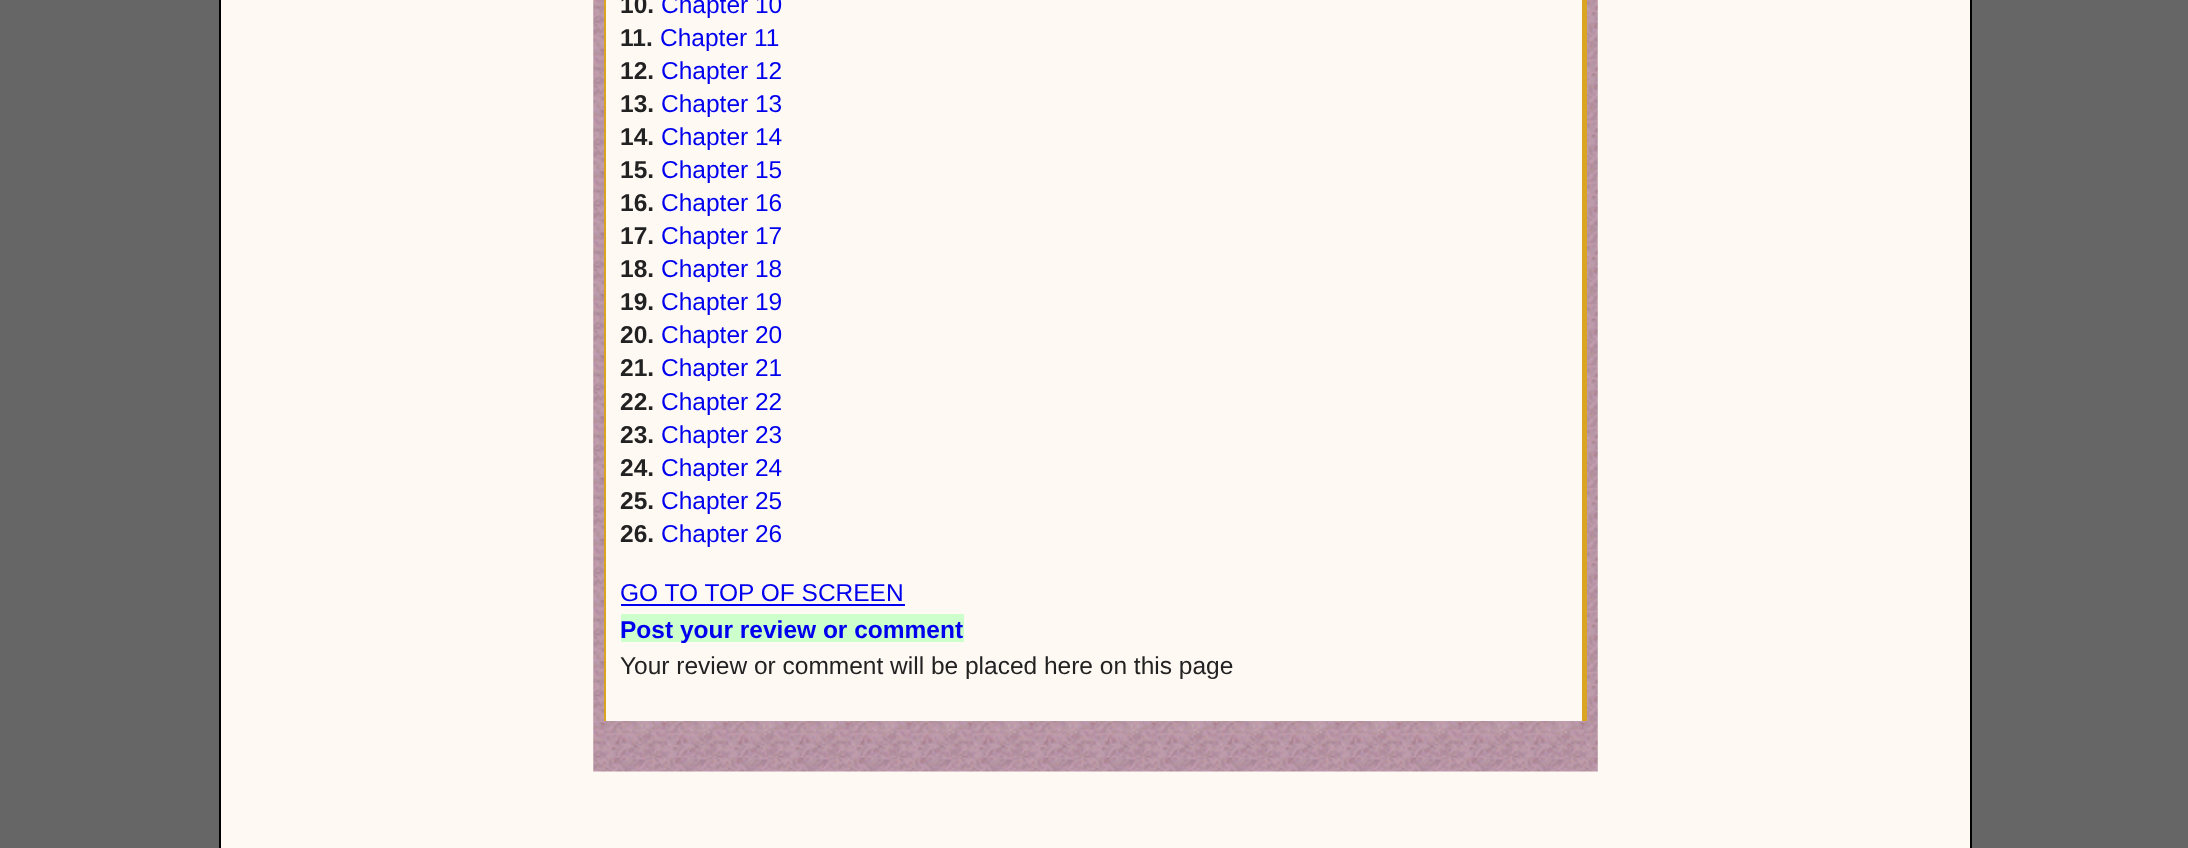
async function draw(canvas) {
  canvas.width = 2188;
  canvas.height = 848;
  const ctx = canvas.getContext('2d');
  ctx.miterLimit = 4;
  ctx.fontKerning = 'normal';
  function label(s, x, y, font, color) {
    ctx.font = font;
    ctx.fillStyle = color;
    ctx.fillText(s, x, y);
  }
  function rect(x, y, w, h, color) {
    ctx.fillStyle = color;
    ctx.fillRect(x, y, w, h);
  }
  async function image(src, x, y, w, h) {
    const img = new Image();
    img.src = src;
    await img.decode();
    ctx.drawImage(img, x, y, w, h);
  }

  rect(0, 0, 2188, 848, '#666');
  ctx.fillStyle = '#fff9f4';
  ctx.beginPath();
  ctx.rect(220, -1, 1751, 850);
  ctx.fill();
  ctx.strokeStyle = '#000';
  ctx.lineWidth = 2;
  ctx.stroke();
  await image('assets/img1.png', 593, 0, 1005, 772);
  rect(606, 0, 976, 721, '#fff9f4');
  rect(1582, 0, 5, 721, '#daa520');
  rect(604, 0, 2, 721, '#daa520');
  label('10.', 620, 13, 'bold 24.5px Liberation Sans', '#222');
  label('Chapter 10', 661, 13, '24.5px Liberation Sans', '#00e');
  label('11.', 620, 46, 'bold 24.5px Liberation Sans', '#222');
  label('Chapter 11', 660, 46, '24.5px Liberation Sans', '#00e');
  label('12.', 620, 79, 'bold 24.5px Liberation Sans', '#222');
  label('Chapter 12', 661, 79, '24.5px Liberation Sans', '#00e');
  label('13.', 620, 112, 'bold 24.5px Liberation Sans', '#222');
  label('Chapter 13', 661, 112, '24.5px Liberation Sans', '#00e');
  label('14.', 620, 145, 'bold 24.5px Liberation Sans', '#222');
  label('Chapter 14', 661, 145, '24.5px Liberation Sans', '#00e');
  label('15.', 620, 178, 'bold 24.5px Liberation Sans', '#222');
  label('Chapter 15', 661, 178, '24.5px Liberation Sans', '#00e');
  label('16.', 620, 211, 'bold 24.5px Liberation Sans', '#222');
  label('Chapter 16', 661, 211, '24.5px Liberation Sans', '#00e');
  label('17.', 620, 244, 'bold 24.5px Liberation Sans', '#222');
  label('Chapter 17', 661, 244, '24.5px Liberation Sans', '#00e');
  label('18.', 620, 277, 'bold 24.5px Liberation Sans', '#222');
  label('Chapter 18', 661, 277, '24.5px Liberation Sans', '#00e');
  label('19.', 620, 310, 'bold 24.5px Liberation Sans', '#222');
  label('Chapter 19', 661, 310, '24.5px Liberation Sans', '#00e');
  label('20.', 620, 343, 'bold 24.5px Liberation Sans', '#222');
  label('Chapter 20', 661, 343, '24.5px Liberation Sans', '#00e');
  label('21.', 620, 376, 'bold 24.5px Liberation Sans', '#222');
  label('Chapter 21', 661, 376, '24.5px Liberation Sans', '#00e');
  label('22.', 620, 410, 'bold 24.5px Liberation Sans', '#222');
  label('Chapter 22', 661, 410, '24.5px Liberation Sans', '#00e');
  label('23.', 620, 443, 'bold 24.5px Liberation Sans', '#222');
  label('Chapter 23', 661, 443, '24.5px Liberation Sans', '#00e');
  label('24.', 620, 476, 'bold 24.5px Liberation Sans', '#222');
  label('Chapter 24', 661, 476, '24.5px Liberation Sans', '#00e');
  label('25.', 620, 509, 'bold 24.5px Liberation Sans', '#222');
  label('Chapter 25', 661, 509, '24.5px Liberation Sans', '#00e');
  label('26.', 620, 542, 'bold 24.5px Liberation Sans', '#222');
  label('Chapter 26', 661, 542, '24.5px Liberation Sans', '#00e');
  label('GO TO TOP OF SCREEN', 620, 601, '24.5px Liberation Sans', '#00e');
  rect(621, 604, 284, 2, '#00e');
  rect(621, 614, 343, 28, '#cfc');
  label('Post your review or comment', 620, 638, 'bold 24.5px Liberation Sans', '#00e');
  label('Your review or comment will be placed here on this page', 620, 674, '24.5px Liberation Sans', '#222');
}

draw(document.querySelector('canvas'));
